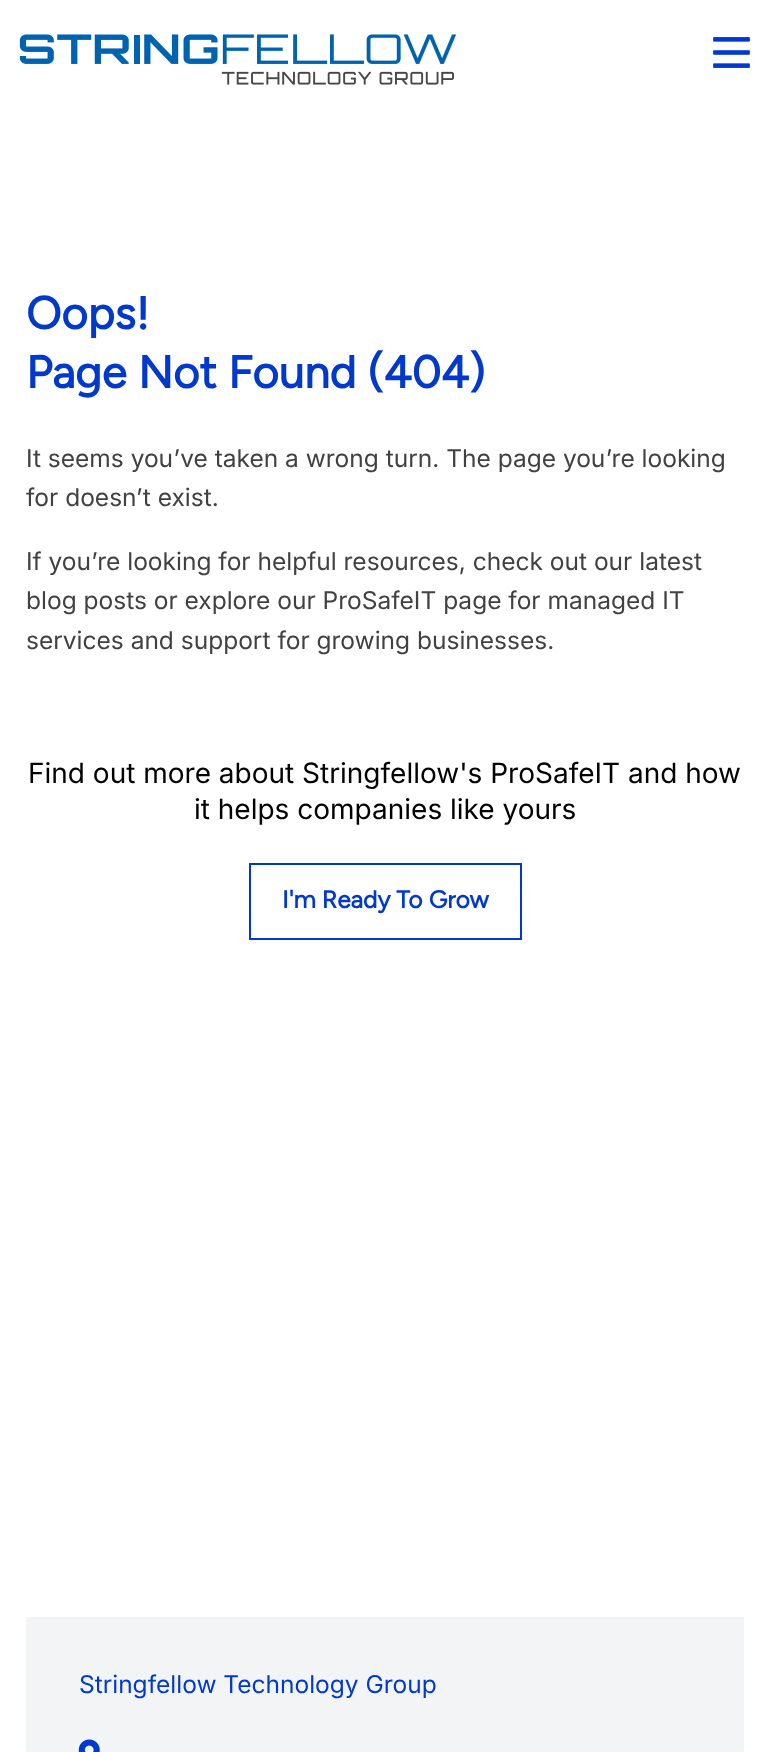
async function draw(canvas) {
  canvas.width = 769;
  canvas.height = 1752;
  const ctx = canvas.getContext('2d');
  ctx.miterLimit = 4;
  ctx.fontKerning = 'normal';
  function label(s, x, y, font, color) {
    ctx.font = font;
    ctx.fillStyle = color;
    ctx.fillText(s, x, y);
  }
  function rect(x, y, w, h, color) {
    ctx.fillStyle = color;
    ctx.fillRect(x, y, w, h);
  }
  async function image(src, x, y, w, h) {
    const img = new Image();
    img.src = src;
    await img.decode();
    ctx.drawImage(img, x, y, w, h);
  }

  rect(0, 0, 769, 1752, '#fff');
  await image('assets/img1.png', 19, 34, 438, 51);
  await image('assets/img2.png', 713, 37, 37, 31);
  label('Oops!', 26, 329, 'bold 45.5px Figtree', '#0039cc');
  label('Page Not Found (404)', 26, 388, 'bold 45.5px Figtree', '#0039cc');
  label('It seems you’ve taken a wrong turn. The page you’re looking', 26, 467, '24.5px Inter', '#414141');
  label('for doesn’t exist.', 26, 506, '24.5px Inter', '#414141');
  label('If you’re looking for helpful resources, check out our latest', 26, 570, '24.5px Inter', '#414141');
  label('blog posts or explore our ProSafeIT page for managed IT', 26, 609, '24.5px Inter', '#414141');
  label('services and support for growing businesses.', 26, 649, '24.5px Inter', '#414141');
  label('Find out more about Stringfellow\'s ProSafeIT and how', 28, 783, '28px Inter', '#010102');
  label('it helps companies like yours', 194, 819, '28px Inter', '#010102');
  ctx.strokeStyle = '#0039cc';
  ctx.lineWidth = 2;
  ctx.strokeRect(250, 864, 271, 75);
  label('I\'m Ready To Grow', 282, 908, 'bold 24.5px Figtree', '#0039cc');
  rect(26, 1617, 718, 135, '#f3f4f6');
  label('Stringfellow Technology Group', 79, 1693, '24.5px Inter', '#0039cc');
  await image('assets/img3.png', 78, 1739, 22, 13);
}

draw(document.querySelector('canvas'));
